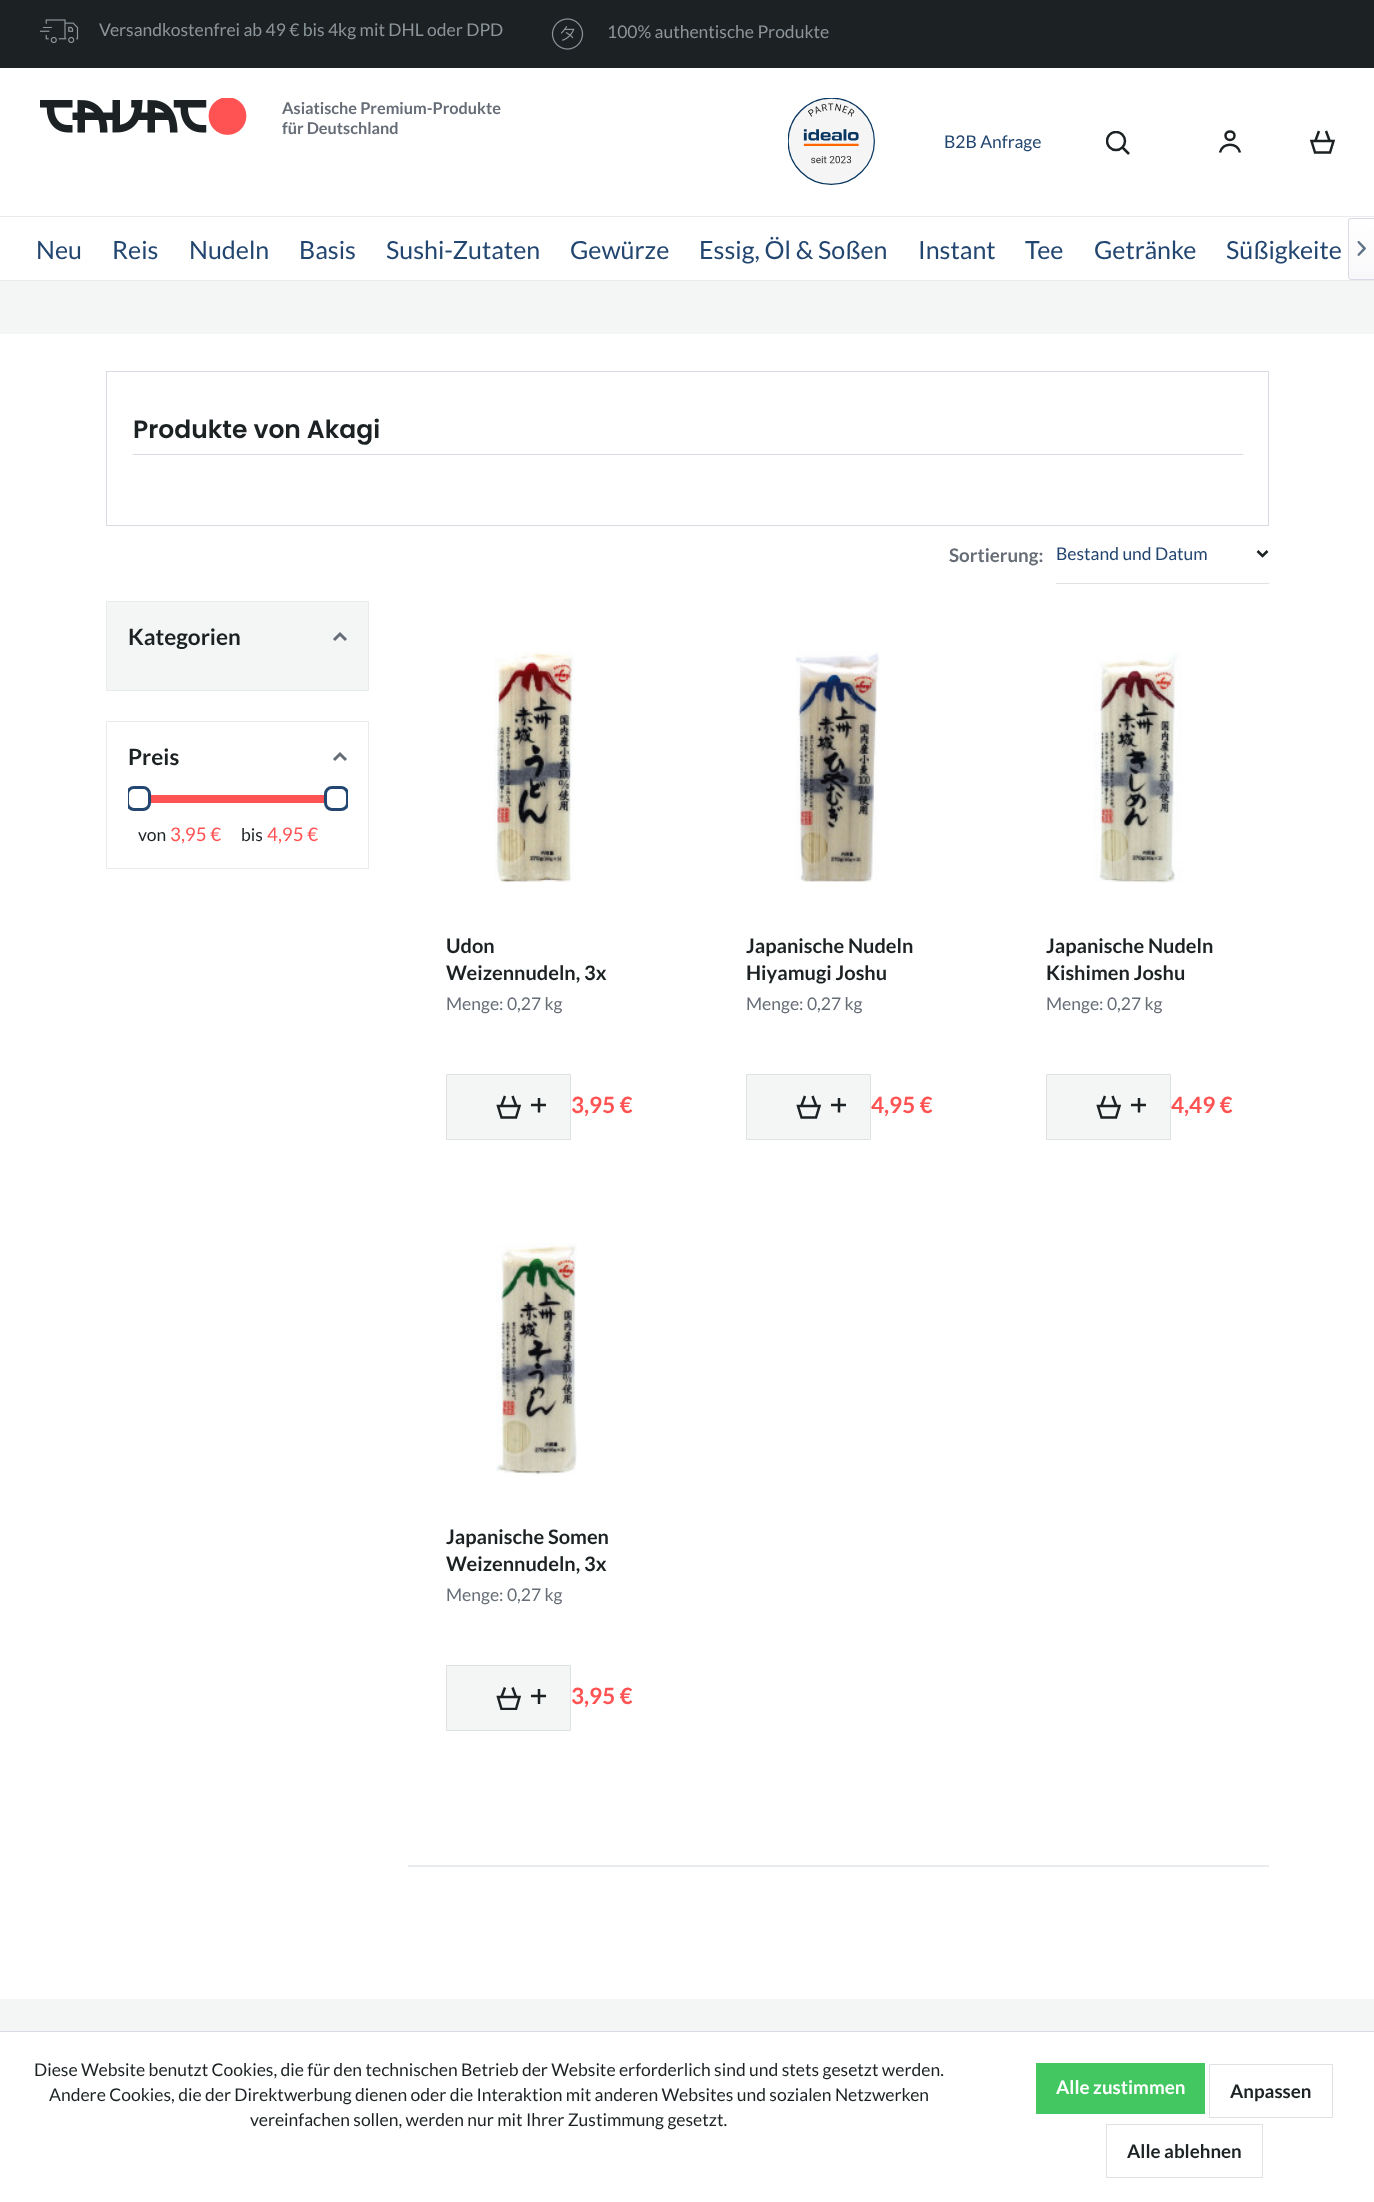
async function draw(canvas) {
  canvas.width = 1374;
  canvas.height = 2202;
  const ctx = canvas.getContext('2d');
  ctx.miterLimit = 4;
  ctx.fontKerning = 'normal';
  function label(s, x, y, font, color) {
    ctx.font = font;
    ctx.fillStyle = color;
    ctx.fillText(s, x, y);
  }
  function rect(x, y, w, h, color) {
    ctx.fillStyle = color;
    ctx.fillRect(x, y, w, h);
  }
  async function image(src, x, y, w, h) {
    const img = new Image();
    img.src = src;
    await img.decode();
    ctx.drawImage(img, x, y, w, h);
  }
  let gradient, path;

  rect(0, 0, 1374, 2202, '#fff');
  rect(0, 280, 1374, 1, '#e9ecee');
  rect(0, 0, 1374, 68, '#1c2224');
  await image('assets/img1.png', 40, 19, 39, 25);
  label('Versandkostenfrei ab 49 € bis 4kg mit DHL oder DPD', 99, 36, '17.5px Lato', '#8b959a');
  await image('assets/img2.png', 551, 18, 33, 32);
  label('100% authentische Produkte', 607, 38, '17.5px Lato', '#8b959a');
  await image('assets/img3.png', 40, 98, 207, 37);
  label('Asiatische Premium-Produkte', 282, 114, 'bold 16.25px Lato', '#666d76');
  label('für Deutschland', 282, 134, 'bold 16.25px Lato', '#666d76');
  await image('assets/img4.png', 788, 98, 87, 87);
  label('B2B Anfrage', 944, 148, '17.5px Lato', '#234670');
  ctx.save();
  ctx.beginPath();
  ctx.rect(1106, 131, 24, 24);
  ctx.clip();
  ctx.beginPath();
  ctx.arc(1116, 141, 9, 0, 2 * Math.PI);
  ctx.strokeStyle = '#1c2224';
  ctx.lineWidth = 2.5;
  ctx.stroke();
  ctx.restore();
  path = new Path2D('M1122.5 147.5L1129 154');
  ctx.strokeStyle = '#1c2224';
  ctx.lineWidth = 2.5;
  ctx.stroke(path);
  path = new Path2D('M1220 152.5C1222.5 142 1237.5 142 1240 152.5M1234.5 135.5C1234.5 141.5 1225.5 141.5 1225.5 135.5C1225.5 130 1234.5 130 1234.5 135.5Z');
  ctx.stroke(path);
  path = new Path2D('M1315 152.5L1311.5 141H1333.5L1330 152.5ZM1315.5 140.5L1319 131M1329.5 140.5L1326 131');
  ctx.stroke(path);
  rect(0, 216, 1374, 1, '#e9ecee');
  label('Neu', 36, 259, '25px Lato', '#234670');
  label('Reis', 112, 259, '25px Lato', '#234670');
  label('Nudeln', 189, 259, '25px Lato', '#234670');
  label('Basis', 299, 259, '25px Lato', '#234670');
  label('Sushi-Zutaten', 386, 259, '25px Lato', '#234670');
  label('Gewürze', 570, 259, '25px Lato', '#234670');
  label('Essig, Öl & Soßen', 699, 259, '25px Lato', '#234670');
  label('Instant', 918, 259, '25px Lato', '#234670');
  label('Tee', 1025, 259, '25px Lato', '#234670');
  label('Getränke', 1094, 259, '25px Lato', '#234670');
  label('Süßigkeite', 1226, 259, '25px Lato', '#234670');
  gradient = ctx.createLinearGradient(1362, 219, 1362, 279);
  gradient.addColorStop(0, '#fff');
  gradient.addColorStop(1, '#f8f8fa');
  ctx.fillStyle = gradient;
  path = new Path2D('M1351.5 219H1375V279H1351.5C1350 279 1349 278 1349 276.5V221.5C1349 220 1350 219 1351.5 219Z');
  ctx.fill(path);
  ctx.fillStyle = '#dadae5';
  path = new Path2D('M1351 218H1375V280H1351C1349 280 1348 278 1348 276V221C1348 219 1349 218 1351 218ZM1351 219H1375V279H1351C1350 279 1349 278 1349 276V221C1349 220 1350 219 1351 219Z');
  ctx.fill(path, 'evenodd');
  await image('assets/img5.png', 1357, 241, 9, 15);
  rect(0, 281, 1374, 53, '#f4f6f6');
  ctx.strokeStyle = '#dadae5';
  ctx.lineWidth = 1;
  ctx.strokeRect(106.5, 371.5, 1162, 154);
  rect(133, 454, 1110, 1, '#dadae5');
  label('Produkte von Akagi', 133, 438, '600 25px Poppins', '#1c2224');
  label('Sortierung:', 949, 562, 'bold 18.75px Lato', '#666d76');
  rect(1056, 583, 213, 1, '#dee2e4');
  label('Bestand und Datum', 1056, 560, '17.5px Lato', '#234670');
  path = new Path2D('M1257.5 551L1262.5 556L1267.5 551');
  ctx.strokeStyle = '#1c2224';
  ctx.lineWidth = 2.5;
  ctx.stroke(path);
  ctx.fillStyle = '#f4f6f6';
  ctx.beginPath();
  ctx.rect(106.5, 601.5, 262, 89);
  ctx.fill();
  ctx.strokeStyle = '#e9ecee';
  ctx.lineWidth = 1;
  ctx.stroke();
  label('Kategorien', 128, 645, 'bold 22.5px Lato', '#1c2224');
  path = new Path2D('M346 640L340 634L334 640');
  ctx.strokeStyle = '#666d76';
  ctx.lineWidth = 3;
  ctx.stroke(path);
  ctx.strokeStyle = '#e9ecee';
  ctx.lineWidth = 1;
  ctx.strokeRect(106.5, 721.5, 262, 147);
  label('Preis', 128, 765, 'bold 22.5px Lato', '#1c2224');
  path = new Path2D('M346 760L340 754L334 760');
  ctx.strokeStyle = '#666d76';
  ctx.lineWidth = 3;
  ctx.stroke(path);
  rect(151, 795, 173, 8, '#ff5353');
  ctx.save();
  ctx.beginPath();
  ctx.rect(128, 775, 220, 73);
  ctx.clip();
  ctx.beginPath();
  ctx.roundRect(127.5, 787.5, 22, 22, 6.5);
  ctx.strokeStyle = '#234670';
  ctx.stroke();
  ctx.beginPath();
  ctx.roundRect(325.5, 787.5, 22, 22, 6.5);
  ctx.stroke();
  ctx.restore();
  label('von', 138, 841, '17.5px Lato', '#1c2224');
  label('3,95 €', 170, 841, '18.75px Lato', '#ff5353');
  label('bis', 241, 841, '17.5px Lato', '#1c2224');
  label('4,95 €', 267, 841, '18.75px Lato', '#ff5353');
  await image('assets/img6.png', 494, 651, 80, 232);
  label('Udon', 446, 953, 'bold 20px Lato', '#1c2224');
  label('Weizennudeln, 3x', 446, 980, 'bold 20px Lato', '#1c2224');
  label('Menge: 0,27 kg', 446, 1010, '17.5px Lato', '#666d76');
  ctx.fillStyle = '#f4f6f6';
  ctx.beginPath();
  ctx.rect(446.5, 1074.5, 124, 65);
  ctx.fill();
  ctx.strokeStyle = '#dee2e4';
  ctx.lineWidth = 1;
  ctx.stroke();
  path = new Path2D('M501.5 1117.5L498 1106H519.5L516 1117.5ZM501.5 1105.5L505 1096M516 1105.5L512.5 1096');
  ctx.strokeStyle = '#1c2224';
  ctx.lineWidth = 2.5;
  ctx.stroke(path);
  ctx.save();
  ctx.beginPath();
  ctx.rect(531, 1098, 15, 15);
  ctx.clip();
  path = new Path2D('M539 1097.5V1112.5');
  ctx.stroke(path);
  ctx.restore();
  path = new Path2D('M531 1105H546');
  ctx.stroke(path);
  label('3,95 €', 571, 1113, 'bold 22.5px Lato', '#ff5353');
  await image('assets/img7.png', 795, 651, 86, 231);
  label('Japanische Nudeln', 746, 953, 'bold 20px Lato', '#1c2224');
  label('Hiyamugi Joshu', 746, 980, 'bold 20px Lato', '#1c2224');
  label('Menge: 0,27 kg', 746, 1010, '17.5px Lato', '#666d76');
  ctx.fillStyle = '#f4f6f6';
  ctx.beginPath();
  ctx.rect(746.5, 1074.5, 124, 65);
  ctx.fill();
  ctx.strokeStyle = '#dee2e4';
  ctx.lineWidth = 1;
  ctx.stroke();
  path = new Path2D('M801.5 1117.5L798 1106H819.5L816 1117.5ZM801.5 1105.5L805 1096M816 1105.5L812.5 1096');
  ctx.strokeStyle = '#1c2224';
  ctx.lineWidth = 2.5;
  ctx.stroke(path);
  ctx.save();
  ctx.beginPath();
  ctx.rect(831, 1098, 15, 15);
  ctx.clip();
  path = new Path2D('M839 1097.5V1112.5');
  ctx.stroke(path);
  ctx.restore();
  path = new Path2D('M831 1105H846');
  ctx.stroke(path);
  label('4,95 €', 871, 1113, 'bold 22.5px Lato', '#ff5353');
  await image('assets/img8.png', 1093, 653, 89, 230);
  label('Japanische Nudeln', 1046, 953, 'bold 20px Lato', '#1c2224');
  label('Kishimen Joshu', 1046, 980, 'bold 20px Lato', '#1c2224');
  label('Menge: 0,27 kg', 1046, 1010, '17.5px Lato', '#666d76');
  ctx.fillStyle = '#f4f6f6';
  ctx.beginPath();
  ctx.rect(1046.5, 1074.5, 124, 65);
  ctx.fill();
  ctx.strokeStyle = '#dee2e4';
  ctx.lineWidth = 1;
  ctx.stroke();
  path = new Path2D('M1101.5 1117.5L1098 1106H1119.5L1116 1117.5ZM1101.5 1105.5L1105 1096M1116 1105.5L1112.5 1096');
  ctx.strokeStyle = '#1c2224';
  ctx.lineWidth = 2.5;
  ctx.stroke(path);
  ctx.save();
  ctx.beginPath();
  ctx.rect(1131, 1098, 15, 15);
  ctx.clip();
  path = new Path2D('M1139 1097.5V1112.5');
  ctx.stroke(path);
  ctx.restore();
  path = new Path2D('M1131 1105H1146');
  ctx.stroke(path);
  label('4,49 €', 1171, 1113, 'bold 22.5px Lato', '#ff5353');
  await image('assets/img9.png', 496, 1243, 81, 233);
  label('Japanische Somen', 446, 1544, 'bold 20px Lato', '#1c2224');
  label('Weizennudeln, 3x', 446, 1571, 'bold 20px Lato', '#1c2224');
  label('Menge: 0,27 kg', 446, 1601, '17.5px Lato', '#666d76');
  ctx.fillStyle = '#f4f6f6';
  ctx.beginPath();
  ctx.rect(446.5, 1665.5, 124, 65);
  ctx.fill();
  ctx.strokeStyle = '#dee2e4';
  ctx.lineWidth = 1;
  ctx.stroke();
  ctx.save();
  ctx.beginPath();
  ctx.rect(496, 1686, 25, 24);
  ctx.clip();
  path = new Path2D('M501.5 1709L498 1697H519.5L516 1709Z');
  ctx.strokeStyle = '#1c2224';
  ctx.lineWidth = 2.5;
  ctx.stroke(path);
  ctx.restore();
  path = new Path2D('M501.5 1697L505 1687.5M516 1697L512.5 1687.5M539 1689V1704M531 1696H546');
  ctx.strokeStyle = '#1c2224';
  ctx.lineWidth = 2.5;
  ctx.stroke(path);
  label('3,95 €', 571, 1704, 'bold 22.5px Lato', '#ff5353');
  rect(408, 1865, 861, 2, '#e9ecee');
  rect(0, 1999, 1374, 32, '#f4f6f6');
  rect(0, 2031, 1374, 1, '#dadae5');
  label('Diese Website benutzt Cookies, die für den technischen Betrieb der Website erforderlich sind und stets gesetzt werden.', 34, 2076, '17.5px Lato', '#1c2224');
  label('Andere Cookies, die der Direktwerbung dienen oder die Interaktion mit anderen Websites und sozialen Netzwerken', 49, 2101, '17.5px Lato', '#1c2224');
  label('vereinfachen sollen, werden nur mit Ihrer Zustimmung gesetzt.', 250, 2126, '17.5px Lato', '#1c2224');
  rect(1036, 2063, 169, 51, '#43c861');
  label('Alle zustimmen', 1056, 2094, 'bold 18.75px Lato', '#fff');
  ctx.strokeStyle = '#dee2e4';
  ctx.lineWidth = 1;
  ctx.strokeRect(1209.5, 2064.5, 123, 53);
  label('Anpassen', 1230, 2098, 'bold 18.75px Lato', '#1c2224');
  ctx.strokeRect(1106.5, 2124.5, 156, 53);
  label('Alle ablehnen', 1127, 2158, 'bold 18.75px Lato', '#1c2224');
}

draw(document.querySelector('canvas'));
